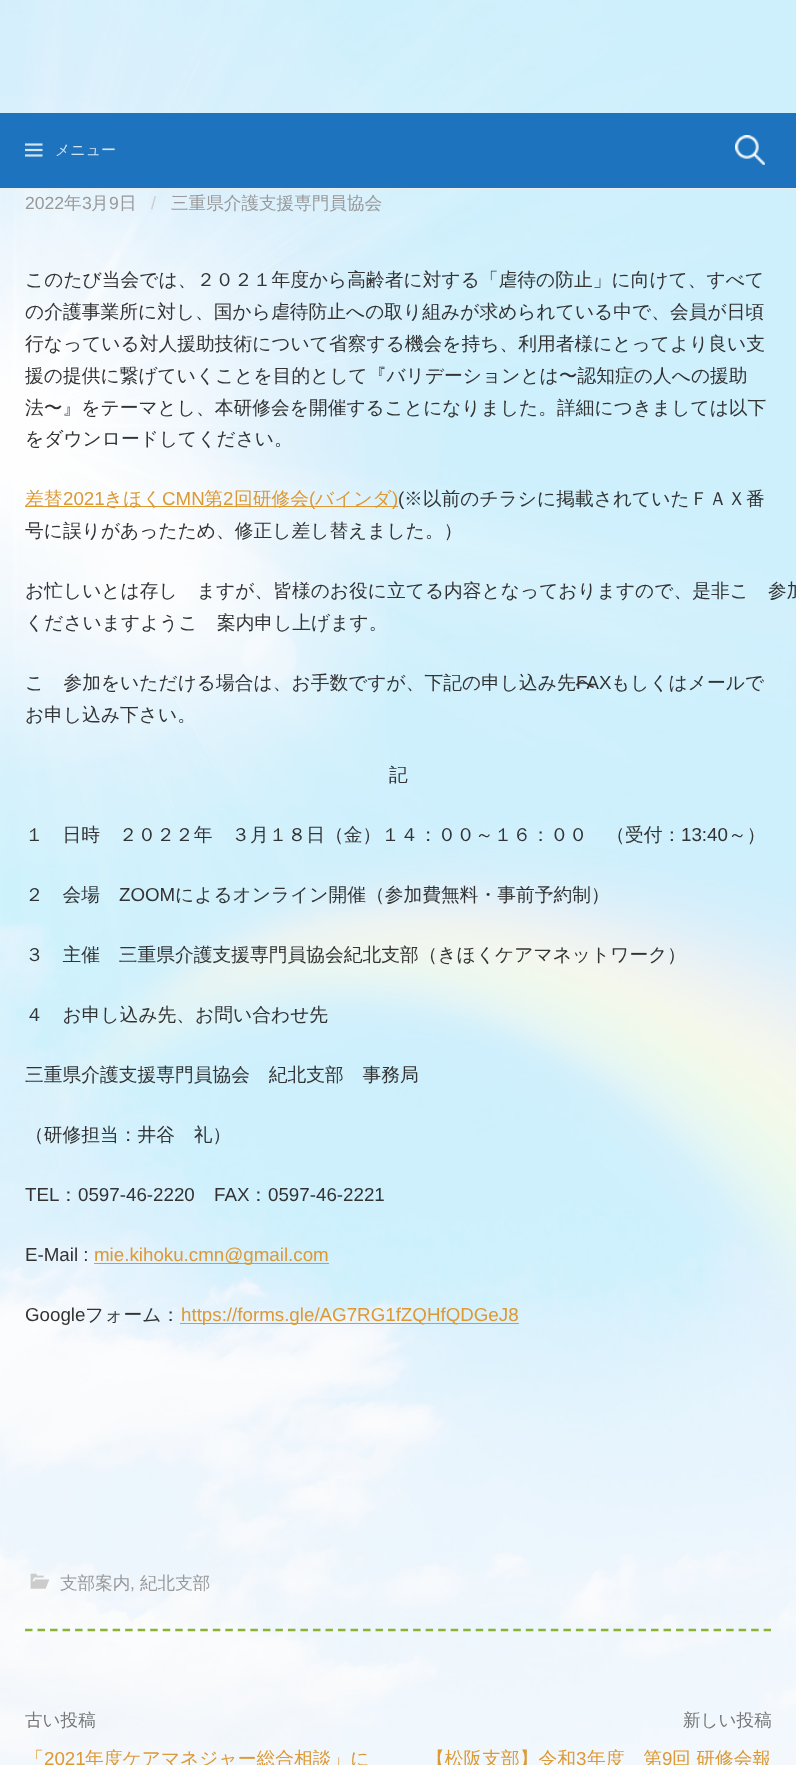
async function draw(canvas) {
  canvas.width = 796;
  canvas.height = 1765;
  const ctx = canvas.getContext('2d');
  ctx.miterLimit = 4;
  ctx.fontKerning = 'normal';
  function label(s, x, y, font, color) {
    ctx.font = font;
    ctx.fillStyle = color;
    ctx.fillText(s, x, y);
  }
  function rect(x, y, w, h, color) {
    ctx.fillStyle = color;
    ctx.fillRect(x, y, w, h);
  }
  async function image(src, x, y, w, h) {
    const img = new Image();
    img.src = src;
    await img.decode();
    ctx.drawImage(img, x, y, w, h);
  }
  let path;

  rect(0, 0, 796, 1765, '#fff');
  await image('assets/img1.png', 0, 0, 796, 1765);
  rect(0, 0, 796, 113, '#ffffffcc');
  rect(0, 188, 796, 1, '#eee');
  rect(0, 113, 796, 75, '#1e73be');
  await image('assets/img2.png', 25, 143, 18, 14);
  label('メニュー', 55, 155, '500 15px WenQuanYi Zen Hei', '#d2e3f2');
  await image('assets/img3.png', 735, 135, 30, 30);
  rect(0, 189, 796, 1576, '#ffffffcc');
  path = new Path2D('M25 1630H771');
  ctx.strokeStyle = '#8bb237';
  ctx.lineWidth = 2.5;
  ctx.setLineDash([7.5, 5.02]);
  ctx.stroke(path);
  label('2022', 25, 209, '17.6px Liberation Sans', '#999');
  label('年', 64, 209, '500 17.6px WenQuanYi Zen Hei', '#999');
  label('3', 82, 209, '17.6px Liberation Sans', '#999');
  label('月', 91, 209, '500 17.6px WenQuanYi Zen Hei', '#999');
  label('9', 109, 209, '17.6px Liberation Sans', '#999');
  label('日', 119, 209, '500 17.6px WenQuanYi Zen Hei', '#999');
  label('/', 151, 209, '17.6px Liberation Sans', '#ccc');
  label('三重県介護支援専門員協会', 171, 209, '500 17.6px WenQuanYi Zen Hei', '#999');
  label('このたび当会では、２０２１年度から高齢者に対する「虐待の防止」に向けて、すべて', 25, 286, '500 18.75px WenQuanYi Zen Hei', '#333');
  label('の介護事業所に対し、国から虐待防止への取り組みが求められている中で、会員が日頃', 25, 318, '500 18.75px WenQuanYi Zen Hei', '#333');
  label('行なっている対人援助技術について省察する機会を持ち、利用者様にとってより良い支', 25, 350, '500 18.75px WenQuanYi Zen Hei', '#333');
  label('援の提供に繋げていくことを目的として『バリデーションとは〜認知症の人への援助', 25, 382, '500 18.75px WenQuanYi Zen Hei', '#333');
  label('法〜』をテーマとし、本研修会を開催することになりました。詳細につきましては以下', 25, 414, '500 18.75px WenQuanYi Zen Hei', '#333');
  label('をダウンロードしてください。', 25, 445, '500 18.75px WenQuanYi Zen Hei', '#333');
  rect(25, 506, 373, 1, '#d93');
  label('差替', 25, 505, '500 18.75px WenQuanYi Zen Hei', '#d93');
  label('2021', 63, 505, '18.75px Liberation Sans', '#d93');
  label('きほく', 104, 505, '500 18.75px WenQuanYi Zen Hei', '#d93');
  label('CMN', 162, 505, '18.75px Liberation Sans', '#d93');
  label('第', 204, 505, '500 18.75px WenQuanYi Zen Hei', '#d93');
  label('2', 223, 505, '18.75px Liberation Sans', '#d93');
  label('回研修会', 234, 505, '500 18.75px WenQuanYi Zen Hei', '#d93');
  label('(', 309, 505, '18.75px Liberation Sans', '#d93');
  label('バインダ', 315, 505, '500 18.75px WenQuanYi Zen Hei', '#d93');
  label(')', 392, 505, '18.75px Liberation Sans', '#d93');
  label('(', 398, 505, '18.75px Liberation Sans', '#333');
  label('※以前のチラシに掲載されていたＦＡＸ番', 404, 505, '500 18.75px WenQuanYi Zen Hei', '#333');
  label('号に誤りがあったため、修正し差し替えました。）', 25, 537, '500 18.75px WenQuanYi Zen Hei', '#333');
  label('お忙しいとは存じますが、皆様のお役に立てる内容となっておりますので、是非ご参加', 25, 597, '500 18.75px WenQuanYi Zen Hei', '#333');
  label('くださいますようご案内申し上げます。', 25, 629, '500 18.75px WenQuanYi Zen Hei', '#333');
  label('ご参加をいただける場合は、お手数ですが、下記の申し込み先へ', 25, 689, '500 18.75px WenQuanYi Zen Hei', '#333');
  label('FAX', 576, 689, '18.75px Liberation Sans', '#333');
  label('もしくはメールで', 611, 689, '500 18.75px WenQuanYi Zen Hei', '#333');
  label('お申し込み下さい。', 25, 721, '500 18.75px WenQuanYi Zen Hei', '#333');
  label('記', 389, 781, '500 18.75px WenQuanYi Zen Hei', '#333');
  label('１　日時　２０２２年　３月１８日（金）１４：００～１６：００　（受付：', 25, 841, '500 18.75px WenQuanYi Zen Hei', '#333');
  label('13:40', 681, 841, '18.75px Liberation Sans', '#333');
  label('～）', 728, 841, '500 18.75px WenQuanYi Zen Hei', '#333');
  label('２　会場', 25, 901, '500 18.75px WenQuanYi Zen Hei', '#333');
  label('ZOOM', 119, 901, '18.75px Liberation Sans', '#333');
  label('によるオンライン開催（参加費無料・事前予約制）', 175, 901, '500 18.75px WenQuanYi Zen Hei', '#333');
  label('３　主催　三重県介護支援専門員協会紀北支部（きほくケアマネットワーク）', 25, 961, '500 18.75px WenQuanYi Zen Hei', '#333');
  label('４　お申し込み先、お問い合わせ先', 25, 1021, '500 18.75px WenQuanYi Zen Hei', '#333');
  label('三重県介護支援専門員協会　紀北支部　事務局', 25, 1081, '500 18.75px WenQuanYi Zen Hei', '#333');
  label('（研修担当：井谷　礼）', 25, 1141, '500 18.75px WenQuanYi Zen Hei', '#333');
  label('TEL', 25, 1201, '18.75px Liberation Sans', '#333');
  label('：', 59, 1201, '500 18.75px WenQuanYi Zen Hei', '#333');
  label('0597-46-2220', 78, 1201, '18.75px Liberation Sans', '#333');
  label('FAX', 214, 1201, '18.75px Liberation Sans', '#333');
  label('：', 249, 1201, '500 18.75px WenQuanYi Zen Hei', '#333');
  label('0597-46-2221', 268, 1201, '18.75px Liberation Sans', '#333');
  label('E-Mail :', 25, 1261, '18.75px Liberation Sans', '#333');
  rect(94, 1263, 235, 1, '#d93');
  label('mie.kihoku.cmn@gmail.com', 94, 1261, '18.75px Liberation Sans', '#d93');
  label('Google', 25, 1321, '18.75px Liberation Sans', '#333');
  label('フォーム：', 85, 1321, '500 18.75px WenQuanYi Zen Hei', '#333');
  rect(180, 1323, 339, 1, '#d93');
  label('https://forms.gle/AG7RG1fZQHfQDGeJ8', 181, 1321, '18.75px Liberation Sans', '#d93');
  await image('assets/img4.png', 30, 1573, 20, 16);
  label('支部案内', 60, 1589, '500 17.6px WenQuanYi Zen Hei', '#999');
  label(',', 130, 1589, '17.6px Liberation Sans', '#999');
  label('紀北支部', 140, 1589, '500 17.6px WenQuanYi Zen Hei', '#999');
  label('古い投稿', 25, 1726, '500 17.6px WenQuanYi Zen Hei', '#777');
  label('「', 25, 1765, '500 18.75px WenQuanYi Zen Hei', '#d93');
  label('2021', 44, 1765, '18.75px Liberation Sans', '#d93');
  label('年度ケアマネジャー総合相談」に', 85, 1765, '500 18.75px WenQuanYi Zen Hei', '#d93');
  label('新しい投稿', 683, 1726, '500 17.6px WenQuanYi Zen Hei', '#777');
  label('【松阪支部】令和', 426, 1765, '500 18.75px WenQuanYi Zen Hei', '#d93');
  label('3', 576, 1765, '18.75px Liberation Sans', '#d93');
  label('年度　第', 587, 1765, '500 18.75px WenQuanYi Zen Hei', '#d93');
  label('9', 662, 1765, '18.75px Liberation Sans', '#d93');
  label('回 研修会報', 672, 1765, '500 18.75px WenQuanYi Zen Hei', '#d93');
}

draw(document.querySelector('canvas'));
